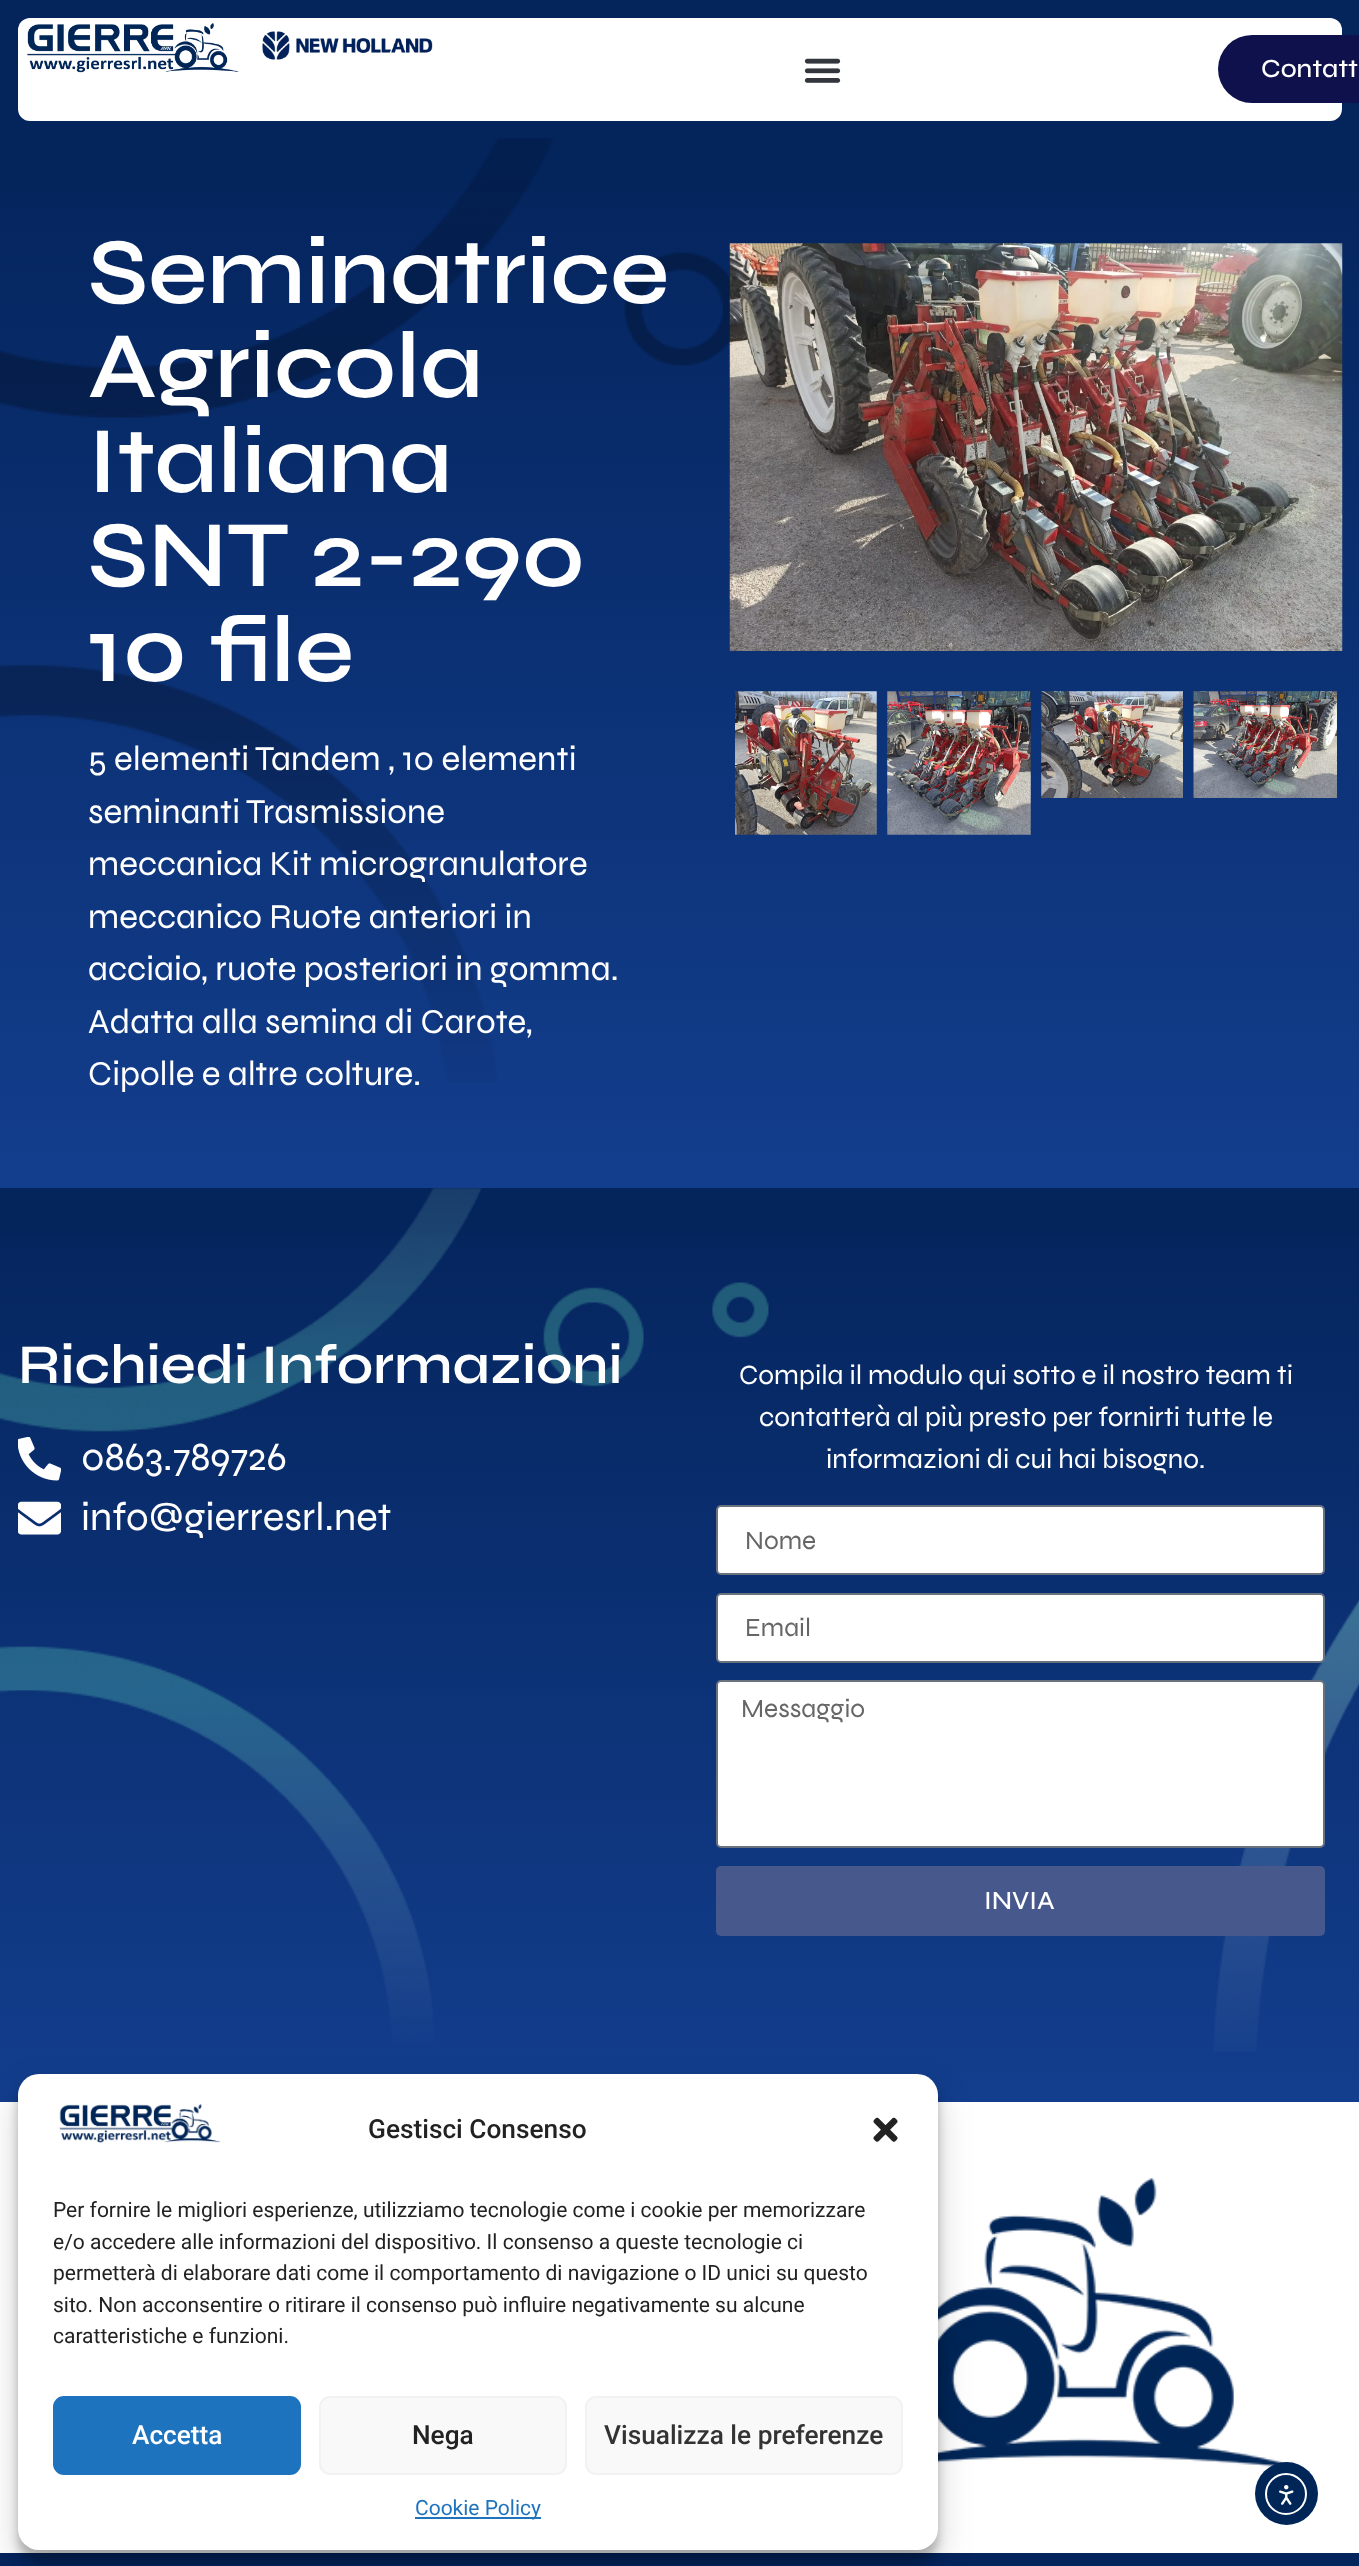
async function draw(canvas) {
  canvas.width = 1359;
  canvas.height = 2566;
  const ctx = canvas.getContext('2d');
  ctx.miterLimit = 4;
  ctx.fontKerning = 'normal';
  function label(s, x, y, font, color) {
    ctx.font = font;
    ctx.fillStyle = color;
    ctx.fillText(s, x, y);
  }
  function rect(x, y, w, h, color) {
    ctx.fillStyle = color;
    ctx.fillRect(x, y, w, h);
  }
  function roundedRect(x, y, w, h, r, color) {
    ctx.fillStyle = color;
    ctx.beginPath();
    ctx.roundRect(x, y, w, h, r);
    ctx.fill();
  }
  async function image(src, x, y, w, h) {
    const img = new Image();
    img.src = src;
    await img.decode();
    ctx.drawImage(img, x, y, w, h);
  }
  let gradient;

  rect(0, 0, 1359, 2566, '#04245c');
  roundedRect(18, 18, 1324, 103, 12, '#fff');
  await image('assets/img1.png', 27, 23, 212, 50);
  await image('assets/img2.png', 262, 31, 171, 29);
  await image('assets/img3.png', 804, 58, 37, 25);
  roundedRect(1218, 35, 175, 68, 34, '#0f114d');
  label('Contatt', 1261, 77, '500 26.25px Syne', '#fff');
  gradient = ctx.createLinearGradient(680, 138, 680, 1188);
  gradient.addColorStop(0, '#04245c');
  gradient.addColorStop(1, '#133e8d');
  ctx.fillStyle = gradient;
  ctx.fillRect(0, 192, 1359, 996);
  await image('assets/img4.png', 0, 138, 730, 945);
  label('Seminatrice', 88, 303, '600 94.5px Syne', '#fff');
  label('Agricola', 88, 397, '600 94.5px Syne', '#fff');
  label('Italiana', 88, 492, '600 94.5px Syne', '#fff');
  label('SNT 2-290', 88, 586, '600 94.5px Syne', '#fff');
  label('10 file', 88, 681, '600 94.5px Syne', '#fff');
  label('5 elementi Tandem , 10 elementi', 88, 770, '35px Syne', '#fff');
  label('seminanti Trasmissione', 88, 823, '35px Syne', '#fff');
  label('meccanica Kit microgranulatore', 88, 875, '35px Syne', '#fff');
  label('meccanico Ruote anteriori in', 88, 928, '35px Syne', '#fff');
  label('acciaio, ruote posteriori in gomma.', 88, 980, '35px Syne', '#fff');
  label('Adatta alla semina di Carote,', 88, 1033, '35px Syne', '#fff');
  label('Cipolle e altre colture.', 88, 1085, '35px Syne', '#fff');
  await image('assets/img5.png', 729, 243, 614, 408);
  await image('assets/img6.png', 735, 691, 142, 144);
  await image('assets/img7.png', 887, 691, 144, 144);
  await image('assets/img8.png', 1041, 691, 142, 107);
  await image('assets/img9.png', 1193, 691, 144, 107);
  gradient = ctx.createLinearGradient(680, 1188, 680, 2102);
  gradient.addColorStop(0, '#04245c');
  gradient.addColorStop(1, '#133e8d');
  ctx.fillStyle = gradient;
  ctx.fillRect(0, 1235, 1359, 867);
  await image('assets/img10.png', 0, 1188, 1359, 864);
  label('Richiedi Informazioni', 18, 1383, '600 56px Syne', '#fff');
  await image('assets/img11.png', 18, 1437, 43, 44);
  label('0863.789726', 81, 1470, '40.25px Syne', '#fff');
  await image('assets/img12.png', 18, 1501, 43, 34);
  label('info@gierresrl.net', 81, 1530, '40.25px Syne', '#fff');
  label('Compila il modulo qui sotto e il nostro team ti', 739, 1384, '28px Syne', '#fff');
  label('contatterà al più presto per fornirti tutte le', 759, 1426, '28px Syne', '#fff');
  label('informazioni di cui hai bisogno.', 826, 1468, '28px Syne', '#fff');
  ctx.beginPath();
  ctx.roundRect(717, 1506, 607, 68, 4);
  ctx.fill();
  ctx.strokeStyle = '#69727d';
  ctx.lineWidth = 2;
  ctx.stroke();
  label('Nome', 745, 1549, '26.25px Syne', '#666');
  ctx.fillStyle = '#fff';
  ctx.beginPath();
  ctx.roundRect(717, 1594, 607, 68, 4);
  ctx.fill();
  ctx.stroke();
  label('Email', 745, 1636, '26.25px Syne', '#666');
  ctx.fillStyle = '#fff';
  ctx.beginPath();
  ctx.roundRect(717, 1681, 607, 166, 4);
  ctx.fill();
  ctx.stroke();
  label('Messaggio', 741, 1717, '26.25px Syne', '#666');
  roundedRect(716, 1866, 609, 70, 5, '#47588d');
  label('INVIA', 984, 1909, '500 26.25px Syne', '#fff');
  rect(0, 2102, 1359, 451, '#fff');
  await image('assets/img13.png', 938, 2178, 351, 289);
  ctx.fillStyle = '#0000003b';
  ctx.filter = 'blur(5px)';
  ctx.beginPath();
  ctx.roundRect(18, 2084, 920, 476, 21);
  ctx.fill();
  ctx.filter = 'none';
  ctx.fillStyle = '#00000030';
  ctx.filter = 'blur(17.5px)';
  ctx.beginPath();
  ctx.roundRect(18, 2091, 920, 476, 21);
  ctx.fill();
  ctx.filter = 'none';
  roundedRect(18, 2074, 920, 476, 21, '#fff');
  await image('assets/img14.png', 59, 2104, 162, 39);
  label('Gestisci Consenso', 368, 2138, '500 26.25px Roboto', '#222');
  await image('assets/img15.png', 873, 2117, 25, 25);
  label('Per fornire le migliori esperienze, utilizziamo tecnologie come i cookie per memorizzare', 53, 2217, '21px Roboto', '#222');
  label('e/o accedere alle informazioni del dispositivo. Il consenso a queste tecnologie ci', 53, 2249, '21px Roboto', '#222');
  label('permetterà di elaborare dati come il comportamento di navigazione o ID unici su questo', 53, 2280, '21px Roboto', '#222');
  label('sito. Non acconsentire o ritirare il consenso può influire negativamente su alcune', 53, 2312, '21px Roboto', '#222');
  label('caratteristiche e funzioni.', 53, 2343, '21px Roboto', '#222');
  ctx.fillStyle = '#1e73be';
  ctx.beginPath();
  ctx.roundRect(54, 2397, 246, 77, 10);
  ctx.fill();
  ctx.strokeStyle = '#1e73be';
  ctx.stroke();
  label('Accetta', 132, 2444, '500 26.25px Roboto', '#fff');
  ctx.fillStyle = '#f9f9f9';
  ctx.beginPath();
  ctx.roundRect(320, 2397, 246, 77, 10);
  ctx.fill();
  ctx.strokeStyle = '#f2f2f2';
  ctx.stroke();
  label('Nega', 412, 2444, '500 26.25px Roboto', '#222');
  ctx.fillStyle = '#f9f9f9';
  ctx.beginPath();
  ctx.roundRect(586, 2397, 316, 77, 10);
  ctx.fill();
  ctx.stroke();
  label('Visualizza le preferenze', 604, 2444, '500 26.25px Roboto', '#333');
  rect(415, 2517, 126, 2, '#1e73be');
  label('Cookie Policy', 415, 2515, '21px Roboto', '#1e73be');
  ctx.fillStyle = '#002658';
  ctx.beginPath();
  ctx.arc(1286.5, 2493.5, 31.5, 0, 2 * Math.PI);
  ctx.fill();
  ctx.beginPath();
  ctx.arc(1286, 2494, 20, 0, 2 * Math.PI);
  ctx.strokeStyle = '#fff';
  ctx.stroke();
  await image('assets/img16.png', 1279, 2485, 15, 20);
}

draw(document.querySelector('canvas'));
